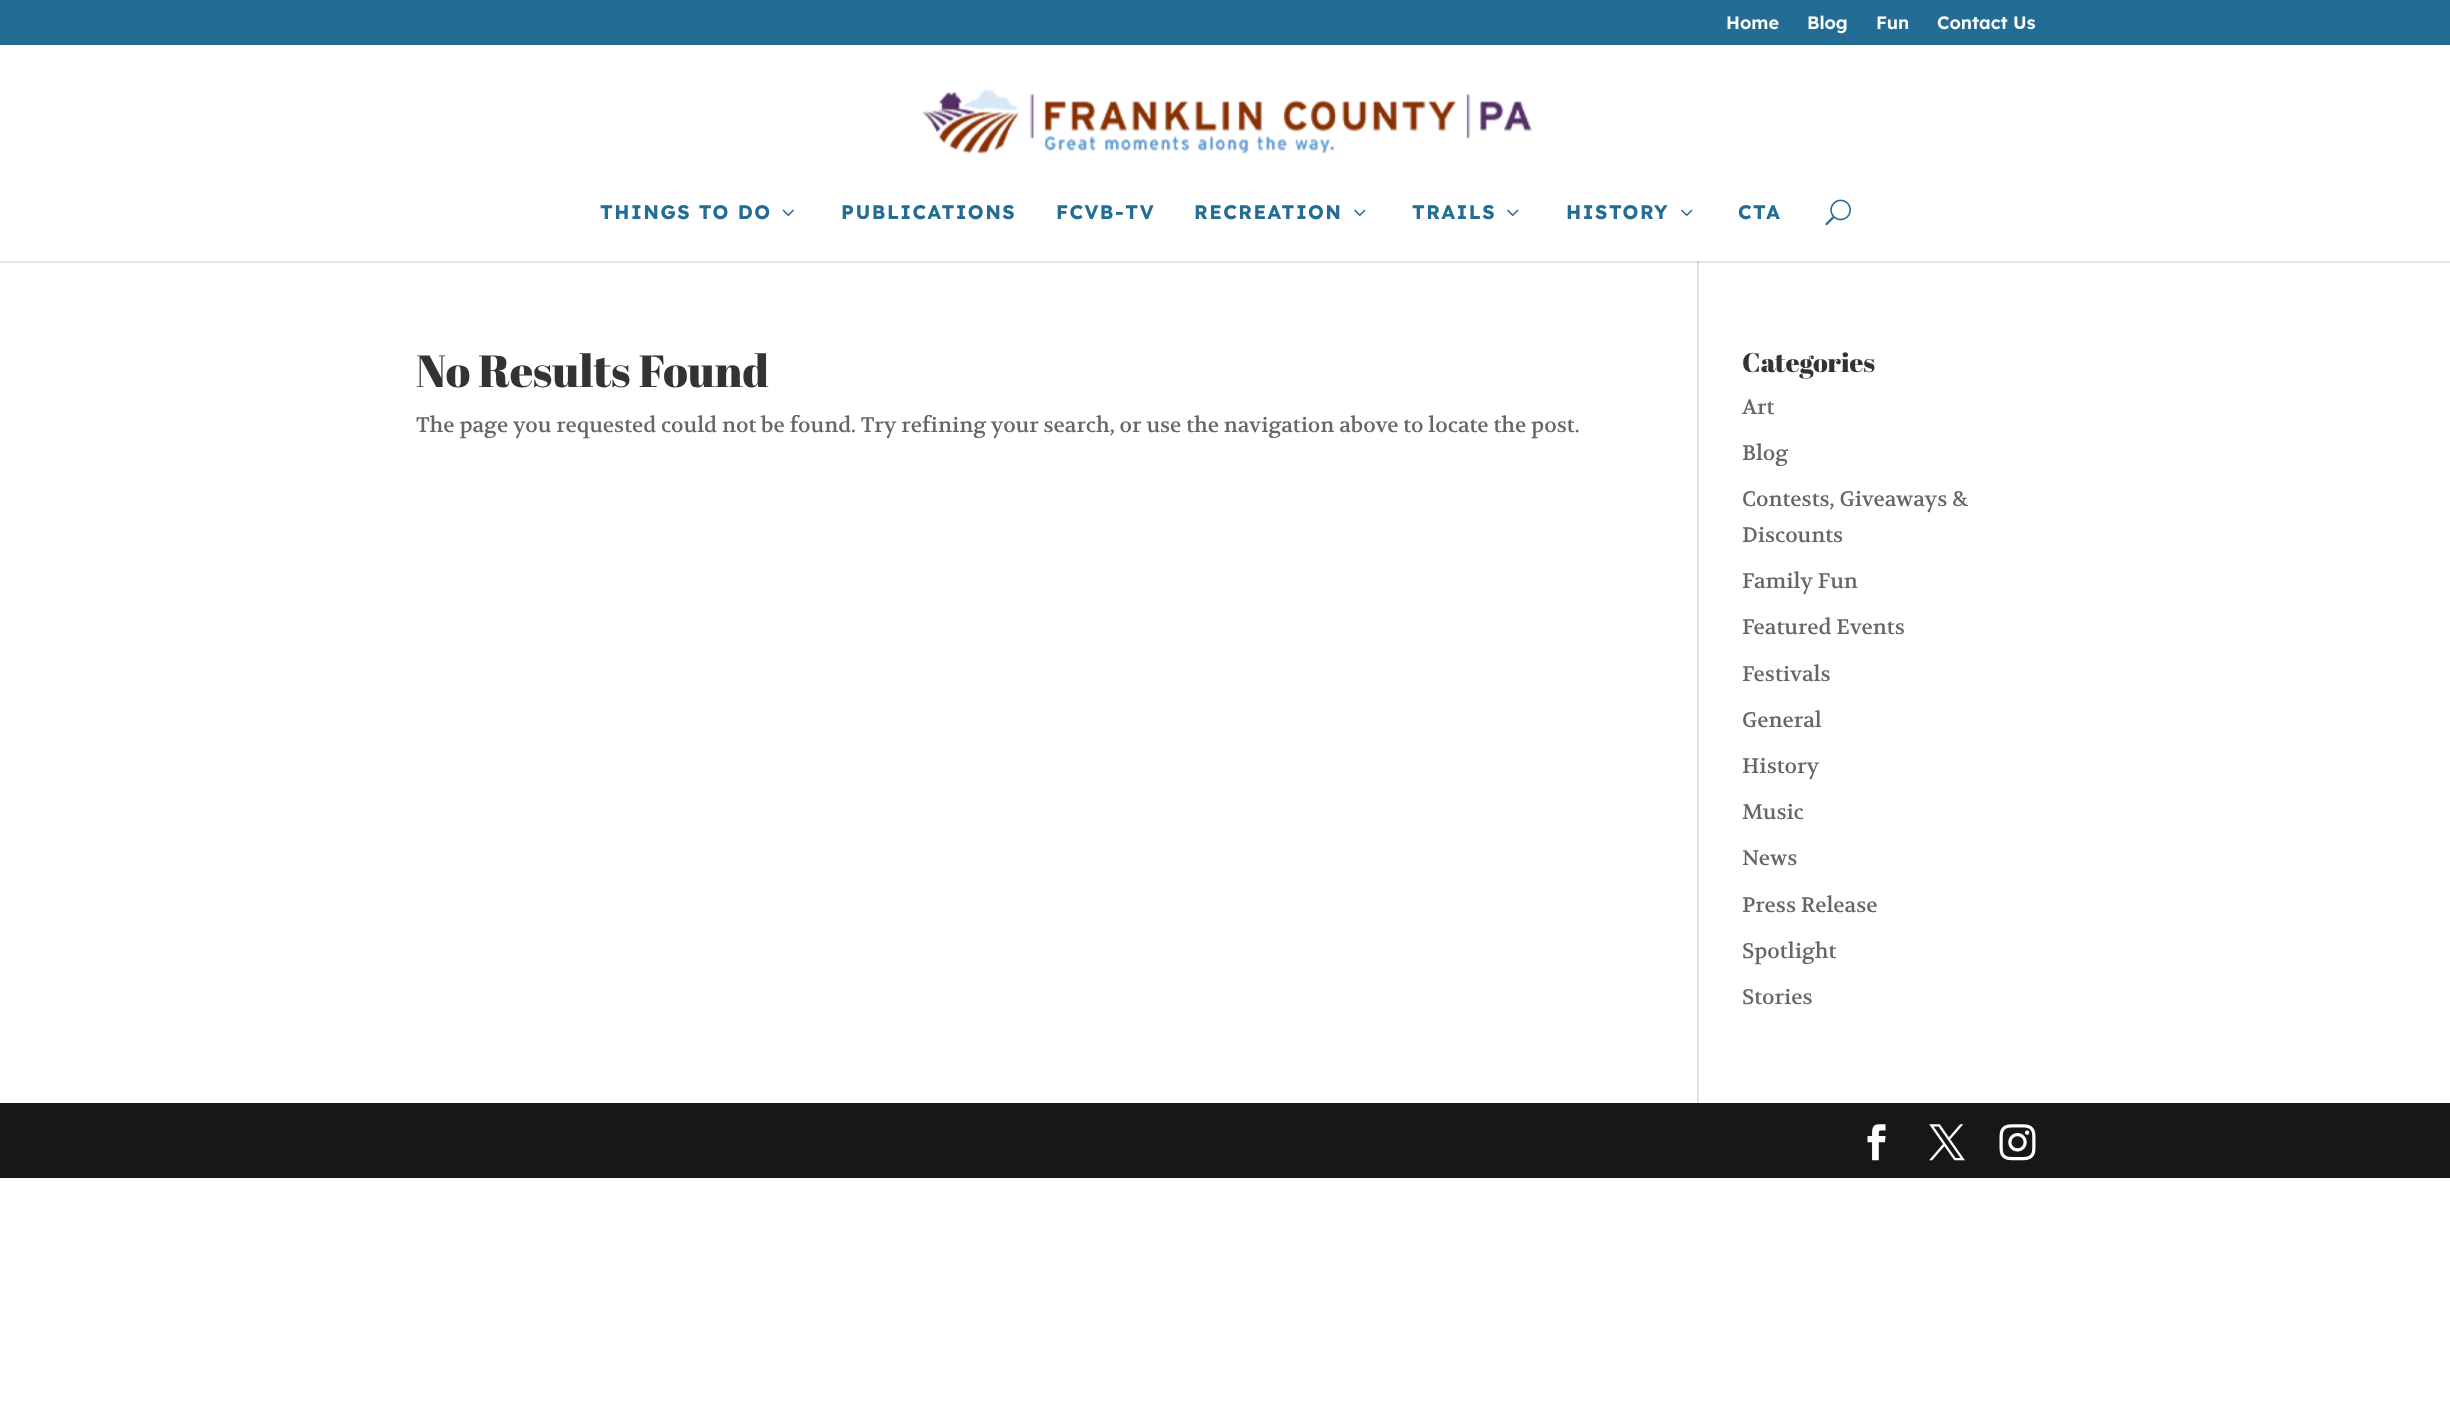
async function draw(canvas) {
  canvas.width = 2450;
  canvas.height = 1413;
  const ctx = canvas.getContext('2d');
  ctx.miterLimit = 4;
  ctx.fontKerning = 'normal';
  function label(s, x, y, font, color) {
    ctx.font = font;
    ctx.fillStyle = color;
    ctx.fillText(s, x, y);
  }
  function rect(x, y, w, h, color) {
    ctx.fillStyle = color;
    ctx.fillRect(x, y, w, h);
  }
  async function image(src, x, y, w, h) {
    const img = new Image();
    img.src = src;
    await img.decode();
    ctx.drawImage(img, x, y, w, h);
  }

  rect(0, 0, 2450, 1413, '#fff');
  rect(0, 261, 2450, 2, '#e6e6e6');
  rect(0, 0, 2450, 45, '#236c94');
  label('Home', 1726, 29, '600 18px Lexend', '#fff');
  label('Blog', 1807, 29, '600 18px Lexend', '#fff');
  label('Fun', 1876, 29, '600 18px Lexend', '#fff');
  label('Contact Us', 1937, 29, '600 18px Lexend', '#fff');
  await image('assets/img1.png', 922, 88, 610, 66);
  ctx.letterSpacing = '1.5px';
  label('THINGS TO DO', 600, 219, 'bold 19.5px Lexend', '#236c94');
  await image('assets/img2.png', 782, 209, 12, 7);
  label('PUBLICATIONS', 841, 219, 'bold 19.5px Lexend', '#236c94');
  label('FCVB-TV', 1056, 219, 'bold 19.5px Lexend', '#236c94');
  label('RECREATION', 1194, 219, 'bold 19.5px Lexend', '#236c94');
  await image('assets/img3.png', 1354, 209, 12, 7);
  label('TRAILS', 1412, 219, 'bold 19.5px Lexend', '#236c94');
  await image('assets/img3.png', 1507, 209, 12, 7);
  label('HISTORY', 1566, 219, 'bold 19.5px Lexend', '#236c94');
  await image('assets/img3.png', 1681, 209, 12, 7);
  label('CTA', 1738, 219, 'bold 19.5px Lexend', '#236c94');
  await image('assets/img4.png', 1825, 199, 26, 27);
  rect(1697, 261, 2, 842, '#e2e2e2');
  rect(1697, 261, 2, 2, '#cbcbcb');
  ctx.letterSpacing = '0px';
  label('No Results Found', 416, 387, '45px Abril Fatface', '#333');
  label('The page you requested could not be found. Try refining your search, or use the navigation above to locate the post.', 416, 432, '21px Volkhov', '#666');
  label('Categories', 1742, 372, '27px Abril Fatface', '#333');
  label('Art', 1742, 414, '21px Volkhov', '#666');
  label('Blog', 1742, 460, '21px Volkhov', '#666');
  label('Contests, Giveaways &', 1742, 506, '21px Volkhov', '#666');
  label('Discounts', 1742, 542, '21px Volkhov', '#666');
  label('Family Fun', 1742, 588, '21px Volkhov', '#666');
  label('Featured Events', 1742, 634, '21px Volkhov', '#666');
  label('Festivals', 1742, 681, '21px Volkhov', '#666');
  label('General', 1742, 727, '21px Volkhov', '#666');
  label('History', 1742, 773, '21px Volkhov', '#666');
  label('Music', 1742, 819, '21px Volkhov', '#666');
  label('News', 1742, 865, '21px Volkhov', '#666');
  label('Press Release', 1742, 912, '21px Volkhov', '#666');
  label('Spotlight', 1742, 958, '21px Volkhov', '#666');
  label('Stories', 1742, 1004, '21px Volkhov', '#666');
  rect(0, 1103, 2450, 75, '#171717');
  await image('assets/img5.png', 1867, 1124, 19, 37);
  await image('assets/img6.png', 1929, 1124, 36, 37);
  await image('assets/img7.png', 1999, 1124, 37, 37);
}

draw(document.querySelector('canvas'));
